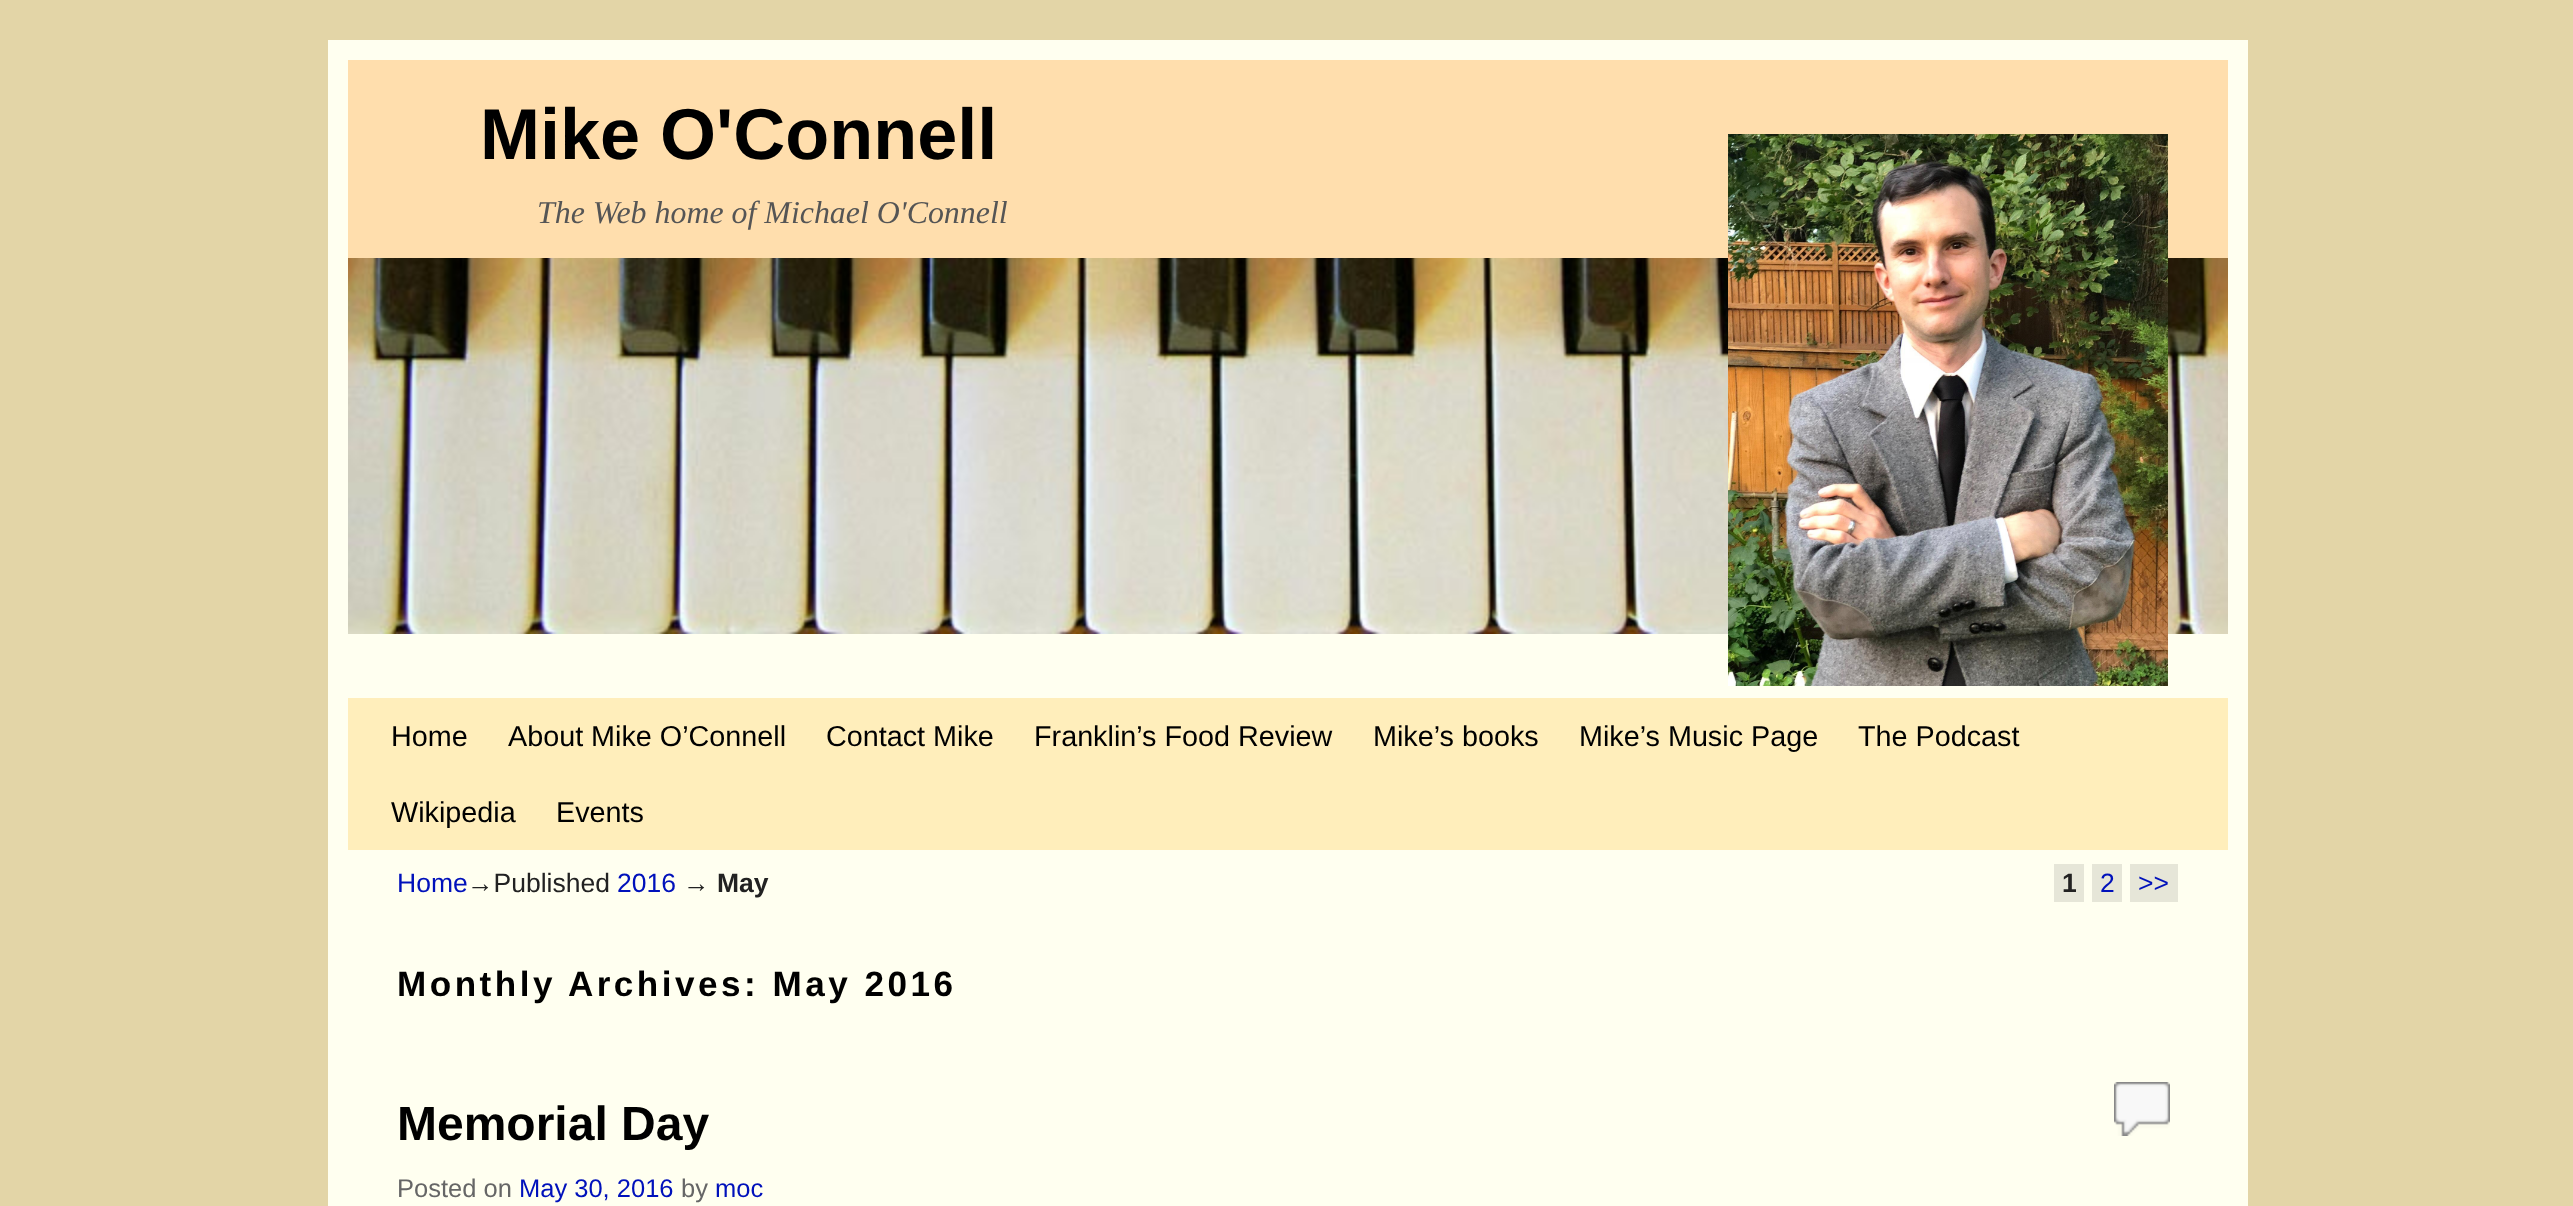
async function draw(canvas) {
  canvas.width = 2573;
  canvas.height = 1206;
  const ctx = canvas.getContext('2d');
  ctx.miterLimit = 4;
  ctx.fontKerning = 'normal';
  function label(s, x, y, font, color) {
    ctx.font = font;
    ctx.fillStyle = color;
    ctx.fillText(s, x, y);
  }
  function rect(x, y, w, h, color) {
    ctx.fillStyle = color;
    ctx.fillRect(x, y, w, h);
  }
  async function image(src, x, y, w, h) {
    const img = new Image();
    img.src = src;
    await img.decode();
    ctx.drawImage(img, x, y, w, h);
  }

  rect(0, 0, 2573, 1206, '#e3d5a7');
  rect(328, 40, 1920, 1166, '#fffff0');
  rect(348, 60, 1880, 198, '#ffdead');
  label('Mike O\'Connell', 480, 159, 'bold 72px Liberation Sans', '#000');
  label('The Web home of Michael O\'Connell', 537, 223, 'italic 31.9px Liberation Serif', '#555');
  await image('assets/img2.png', 348, 258, 1880, 376);
  await image('assets/img1.png', 1728, 134, 440, 552);
  rect(348, 698, 1880, 152, '#feb');
  label('Home', 391, 746, '28.75px Liberation Sans', '#000');
  label('About Mike O’Connell', 508, 746, '28.75px Liberation Sans', '#000');
  label('Contact Mike', 826, 746, '28.75px Liberation Sans', '#000');
  label('Franklin’s Food Review', 1034, 746, '28.75px Liberation Sans', '#000');
  label('Mike’s books', 1373, 746, '28.75px Liberation Sans', '#000');
  label('Mike’s Music Page', 1579, 746, '28.75px Liberation Sans', '#000');
  label('The Podcast', 1858, 746, '28.75px Liberation Sans', '#000');
  label('Wikipedia', 391, 822, '28.75px Liberation Sans', '#000');
  label('Events', 556, 822, '28.75px Liberation Sans', '#000');
  label('Home', 397, 892, '26.5px Liberation Sans', '#01b');
  label('→Published', 467, 892, '26.5px Liberation Sans', '#222');
  label('2016', 617, 892, '26.5px Liberation Sans', '#01b');
  label('→', 683, 892, '26.5px Liberation Sans', '#222');
  label('May', 717, 892, 'bold 26.5px Liberation Sans', '#222');
  rect(2054, 864, 30, 38, '#e6e6d8');
  label('1', 2062, 892, 'bold 26.5px Liberation Sans', '#222');
  rect(2092, 864, 30, 38, '#e6e6d8');
  label('2', 2100, 892, '26.5px Liberation Sans', '#01b');
  rect(2130, 864, 48, 38, '#e6e6d8');
  label('>>', 2138, 892, '26.5px Liberation Sans', '#01b');
  ctx.letterSpacing = '3.5px';
  label('Monthly Archives: May 2016', 397, 996, 'bold 35.1px Liberation Sans', '#000');
  ctx.letterSpacing = '0px';
  label('Memorial Day', 397, 1140, 'bold 48px Liberation Sans', '#000');
  await image('assets/img3.png', 2114, 1082, 56, 54);
  label('Posted on', 397, 1197, '25.5px Liberation Sans', '#666');
  label('May 30, 2016', 519, 1197, '25.5px Liberation Sans', '#01b');
  label('by', 681, 1197, '25.5px Liberation Sans', '#666');
  label('moc', 715, 1197, '25.5px Liberation Sans', '#01b');
}

draw(document.querySelector('canvas'));
